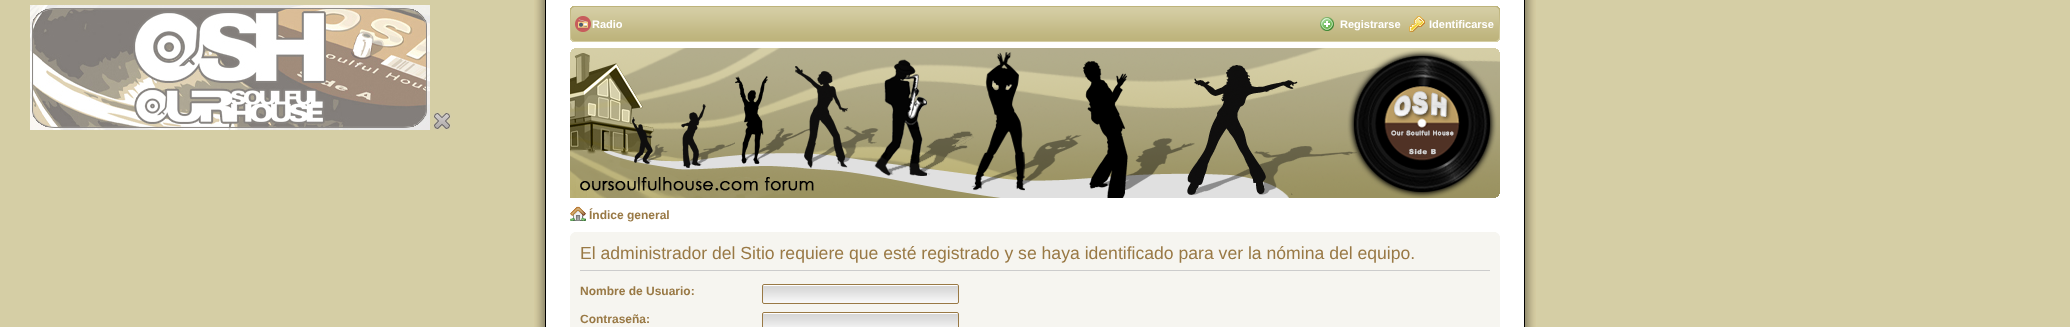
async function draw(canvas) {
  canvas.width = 2070;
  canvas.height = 327;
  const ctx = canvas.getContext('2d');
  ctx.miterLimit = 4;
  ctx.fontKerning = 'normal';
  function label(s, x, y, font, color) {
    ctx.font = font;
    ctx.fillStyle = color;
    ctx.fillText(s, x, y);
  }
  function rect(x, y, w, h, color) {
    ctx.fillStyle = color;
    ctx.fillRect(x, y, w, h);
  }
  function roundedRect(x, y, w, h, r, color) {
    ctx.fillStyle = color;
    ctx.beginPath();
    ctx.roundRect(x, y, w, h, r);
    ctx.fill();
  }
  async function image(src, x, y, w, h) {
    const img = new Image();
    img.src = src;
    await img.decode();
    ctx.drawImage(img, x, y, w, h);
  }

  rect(0, 0, 2070, 327, '#d5cea5');
  await image('assets/img1.png', 30, 5, 400, 125);
  await image('assets/img2.png', 433, 112, 18, 18);
  rect(555, 0, 960, 327, '#fff');
  await image('assets/img3.png', 534, 0, 21, 327);
  await image('assets/img4.png', 574, 6, 922, 36);
  await image('assets/img5.png', 570, 6, 4, 36);
  await image('assets/img6.png', 575, 16, 16, 16);
  label('Radio', 592, 28, 'bold 11px Liberation Sans', '#fff');
  await image('assets/img7.png', 1496, 6, 4, 36);
  await image('assets/img8.png', 1320, 17, 14, 14);
  label('Registrarse', 1340, 28, 'bold 11px Liberation Sans', '#fff');
  await image('assets/img9.png', 1409, 16, 16, 16);
  label('Identificarse', 1429, 28, 'bold 11px Liberation Sans', '#fff');
  await image('assets/img10.png', 570, 48, 930, 150);
  await image('assets/img11.png', 570, 206, 16, 15);
  label('Índice general', 589, 219, 'bold 12px Liberation Sans', '#997945');
  rect(570, 232, 930, 95, '#f6f5f0');
  await image('assets/img12.png', 570, 232, 4, 4);
  await image('assets/img13.png', 1496, 232, 4, 4);
  rect(580, 270, 910, 1, '#ccc');
  label('El administrador del Sitio requiere que esté registrado y se haya identificado para ver la nómina del equipo.', 580, 259, '17.6px Liberation Sans', '#997945');
  label('Nombre de Usuario:', 580, 295, 'bold 12px Liberation Sans', '#997945');
  roundedRect(762, 284, 197, 20, 2, '#fff');
  await image('assets/img14.png', 762, 286, 197, 18);
  ctx.beginPath();
  ctx.roundRect(762.5, 284.5, 196, 19, 1.5);
  ctx.strokeStyle = '#997945';
  ctx.stroke();
  label('Contraseña:', 580, 323, 'bold 12px Liberation Sans', '#997945');
  roundedRect(762, 312, 197, 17, 2, '#fff');
  await image('assets/img15.png', 763, 314, 195, 13);
  ctx.beginPath();
  ctx.roundRect(762.5, 312.5, 196, 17, 1.5);
  ctx.stroke();
  await image('assets/img16.png', 1515, 0, 21, 327);
}

draw(document.querySelector('canvas'));
